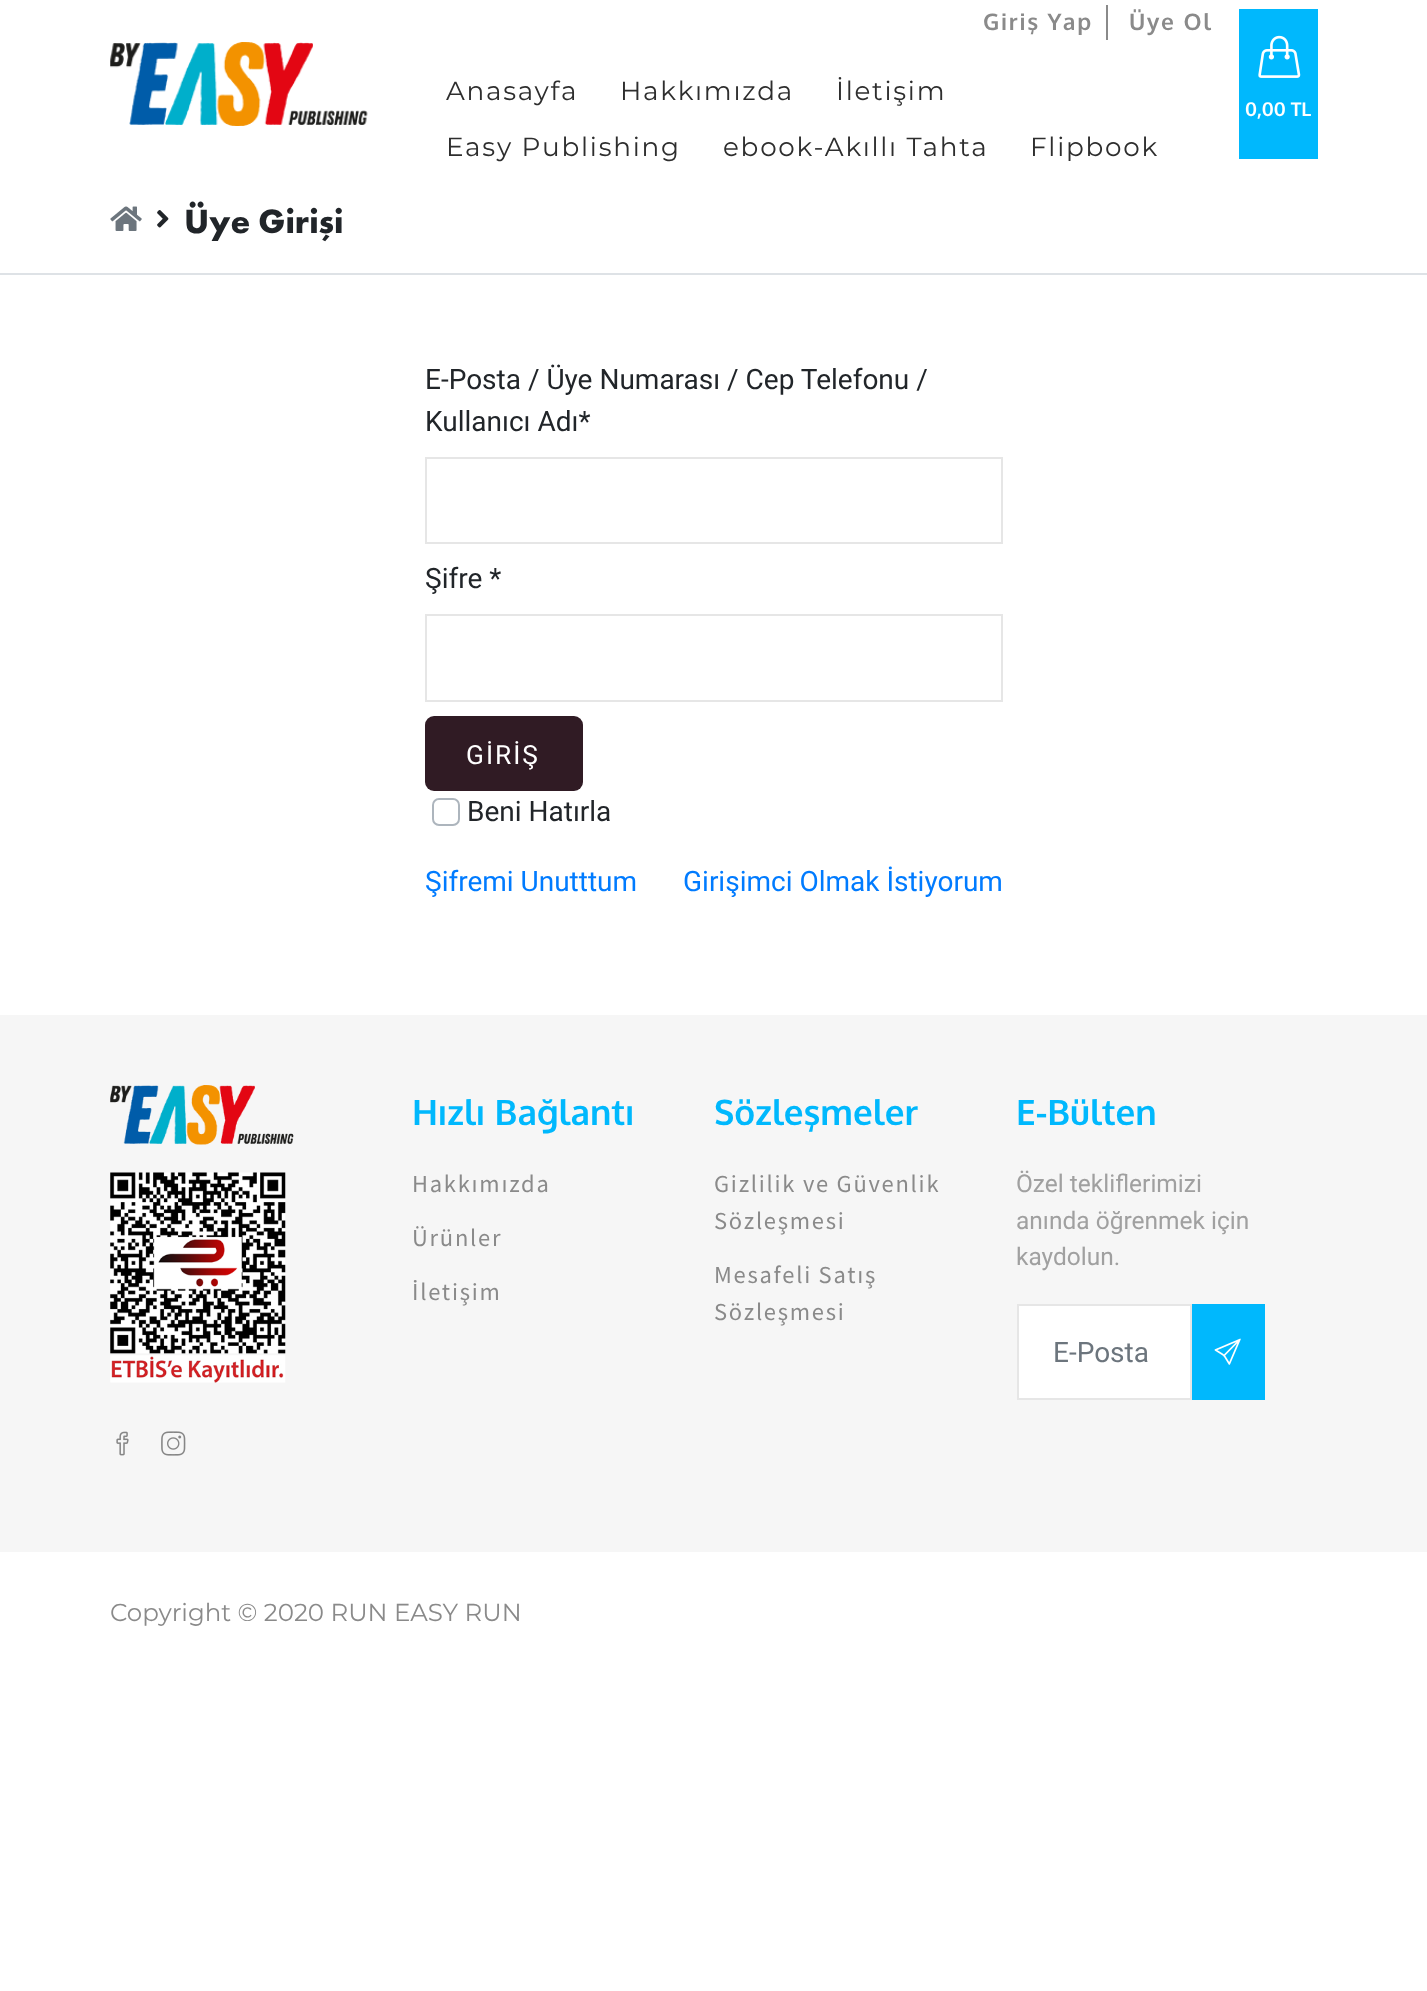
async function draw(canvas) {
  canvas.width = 1427;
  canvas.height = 1991;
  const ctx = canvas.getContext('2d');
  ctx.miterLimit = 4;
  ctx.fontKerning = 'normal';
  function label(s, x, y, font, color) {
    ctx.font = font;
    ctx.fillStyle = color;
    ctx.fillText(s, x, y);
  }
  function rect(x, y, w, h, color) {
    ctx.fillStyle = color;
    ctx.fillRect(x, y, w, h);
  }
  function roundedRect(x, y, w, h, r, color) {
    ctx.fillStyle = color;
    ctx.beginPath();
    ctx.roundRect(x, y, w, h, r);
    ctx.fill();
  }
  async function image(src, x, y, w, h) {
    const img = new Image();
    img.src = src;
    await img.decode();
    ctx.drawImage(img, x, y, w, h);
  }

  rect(0, 0, 1427, 1991, '#fff');
  await image('assets/img1.png', 110, 42, 258, 84);
  rect(1106, 5, 2, 35, '#8a8a8a');
  ctx.letterSpacing = '1.75px';
  label('Giriş Yap', 983, 30, 'bold 22.75px Oxygen', '#8a8a8a');
  label('Üye Ol', 1129, 30, 'bold 22.75px Oxygen', '#8a8a8a');
  label('Anasayfa', 446, 100, '26.25px Montserrat', '#2e2e2e');
  label('Hakkımızda', 620, 100, '26.25px Montserrat', '#2e2e2e');
  label('İletişim', 836, 100, '26.25px Montserrat', '#2e2e2e');
  label('Easy Publishing', 446, 156, '26.25px Montserrat', '#2e2e2e');
  label('ebook-Akıllı Tahta', 723, 156, '26.25px Montserrat', '#2e2e2e');
  label('Flipbook', 1030, 156, '26.25px Montserrat', '#2e2e2e');
  rect(1239, 9, 79, 150, '#00b8fd');
  await image('assets/img2.png', 1258, 35, 43, 43);
  ctx.letterSpacing = '0px';
  label('0,00 TL', 1245, 116, 'bold 19px Oxygen', '#fff');
  rect(0, 273, 1427, 2, '#dee2e6');
  await image('assets/img3.png', 110, 206, 32, 25);
  await image('assets/img4.png', 157, 210, 12, 18);
  label('Üye Girişi', 184, 233, 'bold 35px Futura PT', '#212529');
  label('E-Posta / Üye Numarası / Cep Telefonu /', 425, 389, '28px Roboto', '#212529');
  label('Kullanıcı Adı*', 425, 431, '28px Roboto', '#212529');
  ctx.strokeStyle = '#e6e6e6';
  ctx.lineWidth = 2;
  ctx.strokeRect(426, 458, 576, 85);
  label('Şifre *', 425, 588, '28px Roboto', '#212529');
  ctx.strokeRect(426, 615, 576, 86);
  roundedRect(425, 716, 158, 75, 9, '#301b24');
  ctx.letterSpacing = '2px';
  label('GİRİŞ', 466, 764, '26.25px Roboto', '#fff');
  ctx.beginPath();
  ctx.roundRect(433, 799, 26, 26, 6);
  ctx.strokeStyle = '#adb5bd';
  ctx.stroke();
  ctx.letterSpacing = '0px';
  label('Beni Hatırla', 467, 821, '28px Roboto', '#212529');
  label('Şifremi Unutttum', 425, 891, '28px Roboto', '#007bff');
  label('Girişimci Olmak İstiyorum', 683, 891, '28px Roboto', '#007bff');
  rect(0, 1015, 1427, 537, '#f6f6f6');
  await image('assets/img5.png', 110, 1085, 184, 60);
  await image('assets/img6.png', 110, 1172, 176, 211);
  await image('assets/img7.png', 116, 1431, 13, 25);
  await image('assets/img8.png', 161, 1431, 25, 25);
  label('Hızlı Bağlantı', 412, 1125, 'bold 35px Oxygen', '#00b8fd');
  ctx.letterSpacing = '1.75px';
  label('Hakkımızda', 412, 1192, '24.5px Source Sans Pro', '#8a8a8a');
  label('Ürünler', 412, 1246, '24.5px Source Sans Pro', '#8a8a8a');
  label('İletişim', 412, 1300, '24.5px Source Sans Pro', '#8a8a8a');
  ctx.letterSpacing = '0px';
  label('Sözleşmeler', 714, 1125, 'bold 35px Oxygen', '#00b8fd');
  ctx.letterSpacing = '1.75px';
  label('Gizlilik ve Güvenlik', 714, 1192, '24.5px Source Sans Pro', '#8a8a8a');
  label('Sözleşmesi', 714, 1229, '24.5px Source Sans Pro', '#8a8a8a');
  label('Mesafeli Satış', 714, 1283, '24.5px Source Sans Pro', '#8a8a8a');
  label('Sözleşmesi', 714, 1320, '24.5px Source Sans Pro', '#8a8a8a');
  ctx.letterSpacing = '0px';
  label('E-Bülten', 1016, 1125, 'bold 35px Oxygen', '#00b8fd');
  label('Özel tekliflerimizi', 1016, 1192, '24.5px Roboto', '#a0a0a0');
  label('anında öğrenmek için', 1016, 1229, '24.5px Roboto', '#a0a0a0');
  label('kaydolun.', 1016, 1265, '24.5px Roboto', '#a0a0a0');
  ctx.fillStyle = '#fff';
  ctx.beginPath();
  ctx.rect(1018, 1305, 173, 94);
  ctx.fill();
  ctx.strokeStyle = '#e6e6e6';
  ctx.stroke();
  label('E-Posta', 1053, 1362, '28px Roboto', '#6c757d');
  rect(1192, 1304, 73, 96, '#00b8fd');
  await image('assets/img9.png', 1214, 1338, 27, 27);
  label('Copyright © 2020 RUN EASY RUN', 110, 1621, '24.5px Montserrat', '#8a8a8a');
}

draw(document.querySelector('canvas'));
